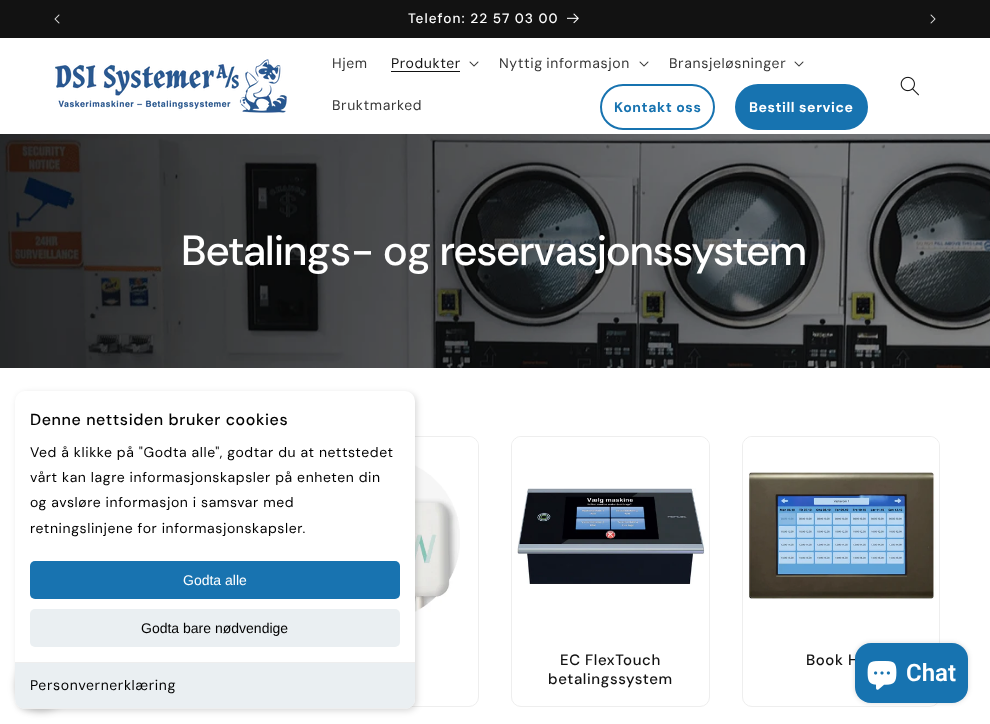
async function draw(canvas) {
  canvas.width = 990;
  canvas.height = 724;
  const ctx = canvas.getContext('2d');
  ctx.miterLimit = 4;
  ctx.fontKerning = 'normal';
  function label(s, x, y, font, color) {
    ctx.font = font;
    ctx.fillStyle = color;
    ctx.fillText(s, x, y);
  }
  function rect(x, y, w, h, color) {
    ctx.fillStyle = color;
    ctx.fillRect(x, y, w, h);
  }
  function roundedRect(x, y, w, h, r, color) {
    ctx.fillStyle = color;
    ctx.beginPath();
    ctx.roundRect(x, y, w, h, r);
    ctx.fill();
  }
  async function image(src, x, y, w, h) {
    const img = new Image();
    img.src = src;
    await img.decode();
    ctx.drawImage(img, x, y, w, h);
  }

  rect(0, 0, 990, 724, '#fff');
  rect(0, 0, 990, 38, '#121212');
  await image('assets/img1.png', 54, 14, 6, 10);
  ctx.letterSpacing = '1px';
  label('Telefon: 22 57 03 00', 408, 23, '500 13.6px "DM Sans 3"', '#fff');
  await image('assets/img2.png', 567, 13, 12, 11);
  await image('assets/img3.png', 930, 14, 6, 10);
  await image('assets/img4.png', 55, 59, 232, 54);
  ctx.letterSpacing = '0.6px';
  label('Hjem', 332, 68, '14px DM Sans', '#363636');
  label('Produkter', 391, 68, '14px DM Sans', '#121212');
  rect(391, 71, 69, 1, '#121212');
  await image('assets/img5.png', 469, 61, 10, 6);
  ctx.wordSpacing = '-1px';
  label('Nyttig informasjon', 499, 68, '14px DM Sans', '#363636');
  await image('assets/img5.png', 639, 61, 10, 6);
  ctx.wordSpacing = '0px';
  label('Bransjeløsninger', 669, 68, '14px DM Sans', '#363636');
  await image('assets/img5.png', 794, 61, 10, 6);
  label('Bruktmarked', 332, 110, '14px DM Sans', '#363636');
  ctx.beginPath();
  ctx.roundRect(601, 85, 113, 44, 22);
  ctx.strokeStyle = '#1773b0';
  ctx.lineWidth = 2;
  ctx.stroke();
  label('Kontakt oss', 614, 112, 'bold 14px DM Sans', '#1773b0');
  ctx.beginPath();
  ctx.roundRect(736, 85, 131, 44, 22);
  ctx.fill();
  ctx.stroke();
  label('Bestill service', 749, 112, 'bold 14px DM Sans', '#fff');
  await image('assets/img6.png', 900, 76, 19, 20);
  await image('assets/img7.png', 0, 134, 990, 234);
  label('Betalings- og reservasjonssystem', 182, 265, '500 42px DM Sans', '#fff');
  ctx.beginPath();
  ctx.roundRect(281.5, 436.5, 197, 270, 9.5);
  ctx.strokeStyle = '#eee';
  ctx.lineWidth = 1;
  ctx.stroke();
  ctx.beginPath();
  ctx.roundRect(282, 437, 196, 197, [9, 9, 0, 0]);
  ctx.fill();
  await image('assets/img8.png', 415, 457, 45, 163);
  ctx.beginPath();
  ctx.roundRect(511.5, 436.5, 198, 270, 9.5);
  ctx.stroke();
  ctx.beginPath();
  ctx.roundRect(512, 437, 197, 197, [9, 9, 0, 0]);
  ctx.fill();
  await image('assets/img9.png', 517, 488, 188, 97);
  label('EC FlexTouch', 560, 665, '500 15px "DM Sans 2"', '#121212');
  label('betalingssystem', 548, 684, '500 15px "DM Sans 2"', '#121212');
  ctx.beginPath();
  ctx.roundRect(742.5, 436.5, 197, 270, 9.5);
  ctx.stroke();
  ctx.fillStyle = '#fff';
  ctx.beginPath();
  ctx.roundRect(743, 437, 196, 197, [9, 9, 0, 0]);
  ctx.fill();
  await image('assets/img10.png', 748, 472, 188, 127);
  label('Book H', 806, 665, '500 15px "DM Sans 2"', '#121212');
  ctx.fillStyle = '#00000026';
  ctx.filter = 'blur(3px)';
  ctx.beginPath();
  ctx.roundRect(17, 393, 400, 318, 10);
  ctx.fill();
  ctx.filter = 'none';
  ctx.fillStyle = '#00000033';
  ctx.filter = 'blur(4px)';
  ctx.beginPath();
  ctx.roundRect(16, 661, 50, 50, 25);
  ctx.fill();
  ctx.filter = 'none';
  roundedRect(15, 391, 400, 318, 10, '#fff');
  label('Denne nettsiden bruker cookies', 30, 425, '500 16px "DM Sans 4"', '#000');
  label('Ved å klikke på "Godta alle", godtar du at nettstedet', 30, 457, '14px "DM Sans 2"', '#000');
  label('vårt kan lagre informasjonskapsler på enheten din', 30, 482, '14px "DM Sans 2"', '#000');
  label('og avsløre informasjon i samsvar med', 30, 507, '14px "DM Sans 2"', '#000');
  label('retningslinjene for informasjonskapsler.', 30, 533, '14px "DM Sans 2"', '#000');
  roundedRect(30, 561, 370, 38, 5, '#1873b0');
  ctx.letterSpacing = '0px';
  label('Godta alle', 183, 585, '14px Liberation Sans', '#fff');
  roundedRect(30, 609, 370, 38, 5, '#eaeff2');
  label('Godta bare nødvendige', 141, 633, '14px Liberation Sans', '#000');
  ctx.fillStyle = '#eaeff2';
  ctx.beginPath();
  ctx.roundRect(15, 662, 400, 47, [0, 0, 10, 10]);
  ctx.fill();
  rect(15, 662, 400, 1, '#eee');
  ctx.save();
  ctx.beginPath();
  ctx.roundRect(15, 391, 400, 318, 10);
  ctx.clip();
  rect(15, 708, 400, 1, '#eee');
  ctx.restore();
  ctx.letterSpacing = '0.6px';
  label('Personvernerklæring', 30, 690, '14px DM Sans', '#000');
  ctx.fillStyle = '#00000026';
  ctx.filter = 'blur(2.5px)';
  ctx.beginPath();
  ctx.roundRect(855, 643, 113, 60, 16);
  ctx.fill();
  ctx.filter = 'none';
  roundedRect(855, 643, 113, 60, 16, '#1773b0');
  await image('assets/img11.png', 867, 661, 30, 29);
  ctx.letterSpacing = '0px';
  label('Chat', 906, 681, '600 24px Roboto', '#fff');
}

draw(document.querySelector('canvas'));
